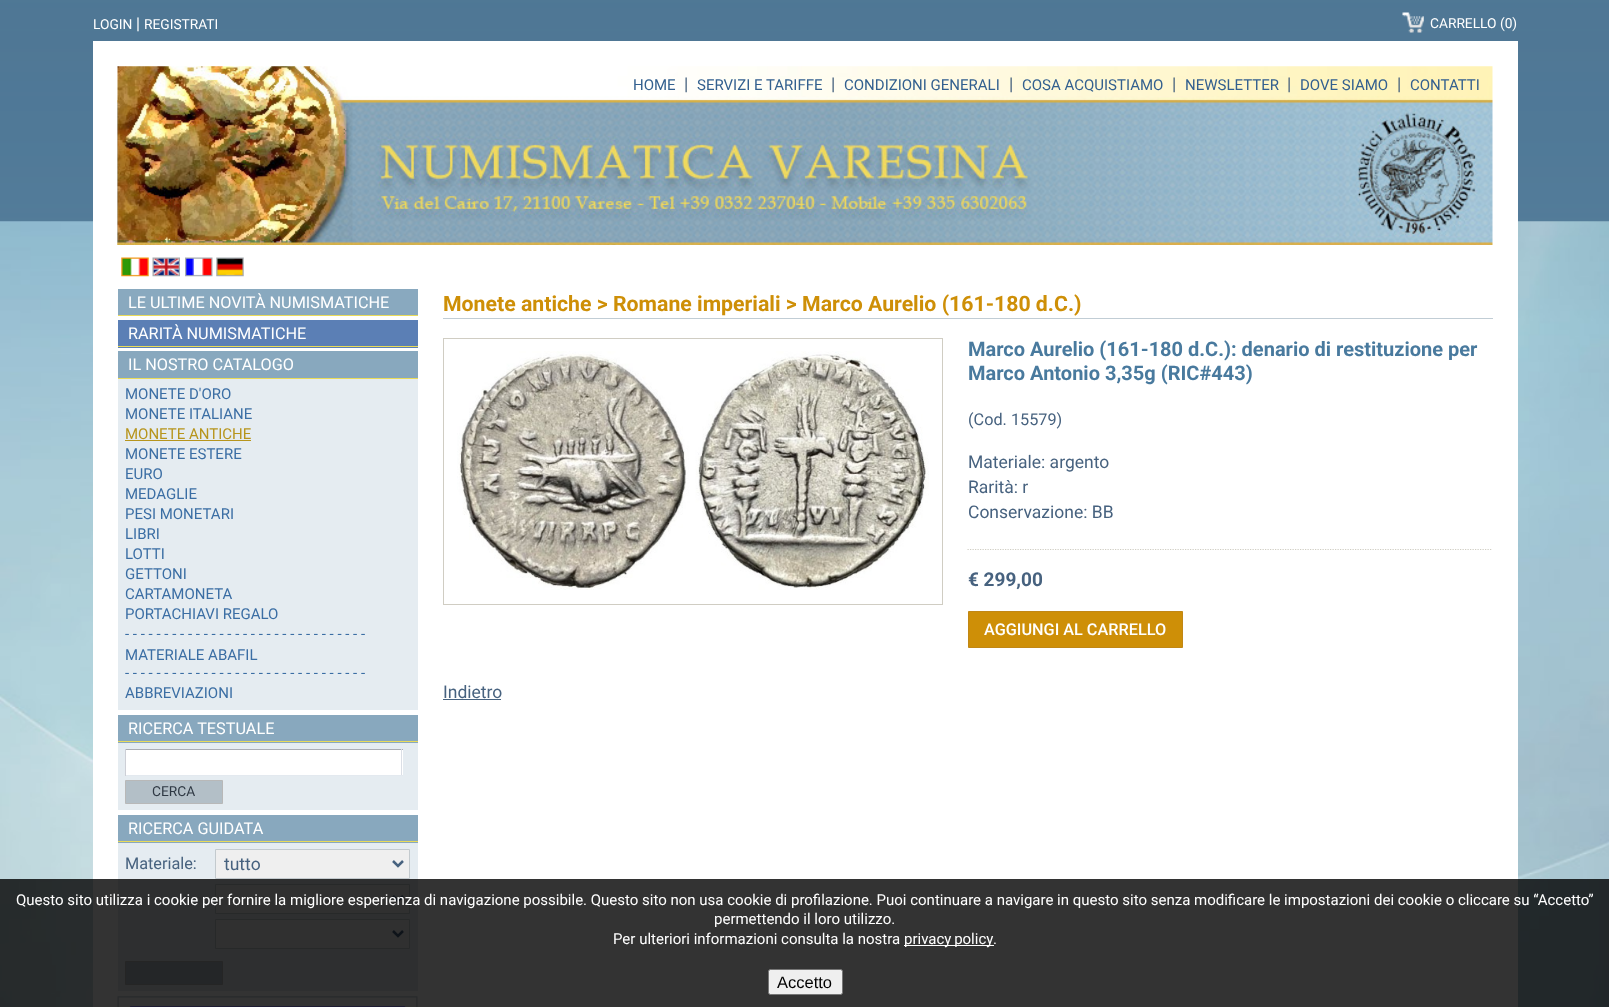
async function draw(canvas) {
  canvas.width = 1609;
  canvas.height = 1007;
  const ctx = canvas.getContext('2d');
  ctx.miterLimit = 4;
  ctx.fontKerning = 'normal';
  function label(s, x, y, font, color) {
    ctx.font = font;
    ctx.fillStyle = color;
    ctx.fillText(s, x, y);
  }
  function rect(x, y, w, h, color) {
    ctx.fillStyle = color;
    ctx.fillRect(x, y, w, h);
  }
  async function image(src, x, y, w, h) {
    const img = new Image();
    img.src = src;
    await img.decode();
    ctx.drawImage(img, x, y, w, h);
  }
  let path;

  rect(0, 0, 1609, 1007, '#fff');
  await image('assets/img11.png', 0, 221, 1609, 786);
  await image('assets/img1.png', 0, 0, 1609, 222);
  label('LOGIN', 93, 29, '13.75px Roboto', '#fff');
  label('|', 136, 29, '16.25px Roboto', '#fff');
  label('REGISTRATI', 144, 29, '13.75px Roboto', '#fff');
  await image('assets/img2.png', 1402, 12, 22, 21);
  label('CARRELLO (0)', 1430, 28, '13.75px Roboto', '#fff');
  rect(93, 41, 1425, 966, '#fff');
  await image('assets/img3.png', 117, 66, 1376, 179);
  await image('assets/img4.png', 117, 66, 236, 179);
  label('HOME', 633, 90, '15px Roboto', '#33608f');
  label('|', 684, 90, '17.5px Roboto', '#47627f');
  label('SERVIZI E TARIFFE', 697, 90, '15px Roboto', '#33608f');
  label('|', 831, 90, '17.5px Roboto', '#47627f');
  label('CONDIZIONI GENERALI', 844, 90, '15px Roboto', '#33608f');
  label('|', 1009, 90, '17.5px Roboto', '#47627f');
  label('COSA ACQUISTIAMO', 1022, 90, '15px Roboto', '#33608f');
  label('|', 1172, 90, '17.5px Roboto', '#47627f');
  label('NEWSLETTER', 1185, 90, '15px Roboto', '#33608f');
  label('|', 1287, 90, '17.5px Roboto', '#47627f');
  label('DOVE SIAMO', 1300, 90, '15px Roboto', '#33608f');
  label('|', 1397, 90, '17.5px Roboto', '#47627f');
  label('CONTATTI', 1410, 90, '15px Roboto', '#33608f');
  await image('assets/img5.png', 121, 257, 28, 20);
  await image('assets/img6.png', 152, 257, 28, 20);
  await image('assets/img7.png', 185, 257, 28, 20);
  await image('assets/img8.png', 216, 257, 28, 20);
  rect(118, 289, 300, 26, '#89a9bf');
  rect(118, 315, 300, 1, '#eadb58');
  label('LE ULTIME NOVITÀ NUMISMATICHE', 128, 308, '16.25px Roboto', '#fff');
  rect(118, 320, 300, 28, '#5b7fb5');
  rect(118, 346, 300, 1, '#eadb58');
  label('RARITÀ NUMISMATICHE', 128, 339, '16.25px Roboto', '#fff');
  rect(118, 351, 300, 27, '#88a8be');
  rect(118, 378, 300, 1, '#eadb58');
  label('IL NOSTRO CATALOGO', 128, 370, '16.25px Roboto', '#fff');
  rect(118, 379, 300, 331, '#e5ecf1');
  label('MONETE D\'ORO', 125, 399, '15px Roboto', '#3b6ea4');
  label('MONETE ITALIANE', 125, 419, '15px Roboto', '#3b6ea4');
  label('MONETE ANTICHE', 125, 439, '15px Roboto', '#b7951d');
  rect(125, 440, 126, 1, '#b7951d');
  label('MONETE ESTERE', 125, 459, '15px Roboto', '#3b6ea4');
  label('EURO', 125, 479, '15px Roboto', '#3b6ea4');
  label('MEDAGLIE', 125, 499, '15px Roboto', '#3b6ea4');
  label('PESI MONETARI', 125, 519, '15px Roboto', '#3b6ea4');
  label('LIBRI', 125, 539, '15px Roboto', '#3b6ea4');
  label('LOTTI', 125, 559, '15px Roboto', '#3b6ea4');
  label('GETTONI', 125, 579, '15px Roboto', '#3b6ea4');
  label('CARTAMONETA', 125, 599, '15px Roboto', '#3b6ea4');
  label('PORTACHIAVI REGALO', 125, 619, '15px Roboto', '#3b6ea4');
  label('- - - - - - - - - - - - - - - - - - - - - - - - - - - - - - -', 125, 639, '15px Roboto', '#3b6ea4');
  label('MATERIALE ABAFIL', 125, 660, '15px Roboto', '#3b6ea4');
  label('- - - - - - - - - - - - - - - - - - - - - - - - - - - - - - -', 125, 678, '15px Roboto', '#3b6ea4');
  label('ABBREVIAZIONI', 125, 698, '15px Roboto', '#3b6ea4');
  rect(118, 715, 300, 28, '#88a8be');
  rect(118, 741, 300, 1, '#eadb58');
  label('RICERCA TESTUALE', 128, 734, '16.25px Roboto', '#fff');
  rect(118, 743, 300, 67, '#e5ecf1');
  rect(126, 750, 277, 25, '#fff');
  rect(125, 749, 278, 1, '#abadb3');
  rect(401, 749, 1, 27, '#dbdfe6');
  rect(125, 775, 278, 1, '#e3e9ef');
  rect(125, 749, 1, 27, '#cdcfd6');
  ctx.fillStyle = '#b3bfc7';
  ctx.beginPath();
  ctx.rect(125.5, 780.5, 97, 23);
  ctx.fill();
  ctx.strokeStyle = '#b8b8b8';
  ctx.stroke();
  label('CERCA', 152, 796, '13.75px Roboto', '#2f3944');
  rect(118, 815, 300, 28, '#88a8be');
  rect(118, 841, 300, 1, '#eadb58');
  label('RICERCA GUIDATA', 128, 834, '16.25px Roboto', '#fff');
  rect(118, 843, 300, 148, '#e5ecf1');
  label('Materiale:', 125, 869, '16.25px Roboto', '#47627f');
  ctx.fillStyle = '#efefef';
  ctx.beginPath();
  ctx.rect(215.5, 849.5, 194, 29);
  ctx.fill();
  ctx.strokeStyle = '#c3cace';
  ctx.stroke();
  path = new Path2D('M393 861L398 866L403 861');
  ctx.strokeStyle = '#47627f';
  ctx.lineWidth = 2.5;
  ctx.stroke(path);
  label('tutto', 224, 870, '17.5px Roboto', '#47627f');
  ctx.fillStyle = '#efefef';
  ctx.beginPath();
  ctx.rect(215.5, 884.5, 194, 29);
  ctx.fill();
  ctx.strokeStyle = '#c3cace';
  ctx.lineWidth = 1;
  ctx.stroke();
  path = new Path2D('M393 896L398 901L403 896');
  ctx.strokeStyle = '#47627f';
  ctx.lineWidth = 2.5;
  ctx.stroke(path);
  ctx.beginPath();
  ctx.rect(215.5, 919.5, 194, 29);
  ctx.fill();
  ctx.strokeStyle = '#c3cace';
  ctx.lineWidth = 1;
  ctx.stroke();
  path = new Path2D('M393 931L398 936L403 931');
  ctx.strokeStyle = '#47627f';
  ctx.lineWidth = 2.5;
  ctx.stroke(path);
  ctx.fillStyle = '#b3bfc7';
  ctx.beginPath();
  ctx.rect(125.5, 961.5, 97, 23);
  ctx.fill();
  ctx.strokeStyle = '#b8b8b8';
  ctx.lineWidth = 1;
  ctx.stroke();
  await image('assets/img9.png', 117, 996, 301, 11);
  rect(443, 318, 1050, 1, '#c1cdd5');
  label('Monete antiche > Romane imperiali > Marco Aurelio (161-180 d.C.)', 443, 311, 'bold 21.25px Roboto', '#ce8f07');
  ctx.strokeStyle = '#d0cdc3';
  ctx.strokeRect(443.5, 338.5, 499, 266);
  await image('assets/img10.png', 457, 351, 472, 239);
  label('Marco Aurelio (161-180 d.C.): denario di restituzione per', 968, 356, 'bold 20px Roboto', '#497a9e');
  label('Marco Antonio 3,35g (RIC#443)', 968, 380, 'bold 20px Roboto', '#497a9e');
  label('(Cod. 15579)', 968, 425, '16.25px Roboto', '#47627f');
  label('Materiale: argento', 968, 468, '17.5px Roboto', '#47627f');
  label('Rarità: r', 968, 493, '17.5px Roboto', '#47627f');
  label('Conservazione: BB', 968, 518, '17.5px Roboto', '#47627f');
  path = new Path2D('M967.5 549.5H1492.5');
  ctx.lineWidth = 1.2;
  ctx.setLineDash([1.25, 1.25]);
  ctx.stroke(path);
  label('€ 299,00', 968, 586, 'bold 19px Roboto', '#47627f');
  ctx.fillStyle = '#ce8f07';
  ctx.beginPath();
  ctx.rect(968.5, 611.5, 214, 36);
  ctx.fill();
  ctx.strokeStyle = '#c18715';
  ctx.lineWidth = 1;
  ctx.setLineDash([]);
  ctx.stroke();
  label('AGGIUNGI AL CARRELLO', 984, 635, '500 16.25px Roboto', '#fff');
  label('Indietro', 443, 698, '17.5px Roboto', '#47627f');
  rect(443, 699, 58, 1, '#47627f');
  rect(0, 879, 1609, 128, '#000000cc');
  label('Questo sito utilizza i cookie per fornire la migliore esperienza di navigazione possibile. Questo sito non usa cookie di profilazione. Puoi continuare a navigare in questo sito senza modificare le impostazioni dei cookie o cliccare su “Accetto”', 16, 905, '15px Roboto', '#fff');
  label('permettendo il loro utilizzo.', 714, 924, '15px Roboto', '#fff');
  label('Per ulteriori informazioni consulta la nostra', 613, 944, '15px Roboto', '#fff');
  rect(904, 945, 90, 1, '#fff');
  ctx.wordSpacing = '-1px';
  label('privacy policy', 904, 944, '15px Roboto', '#fff');
  ctx.wordSpacing = '0px';
  label('.', 993, 944, '15px Roboto', '#fff');
  ctx.fillStyle = '#efefef';
  ctx.beginPath();
  ctx.roundRect(768.5, 969.5, 74, 25, 2);
  ctx.fill();
  ctx.strokeStyle = '#767676';
  ctx.stroke();
  label('Accetto', 777, 988, '16.5px Liberation Sans', '#000');
}

draw(document.querySelector('canvas'));
